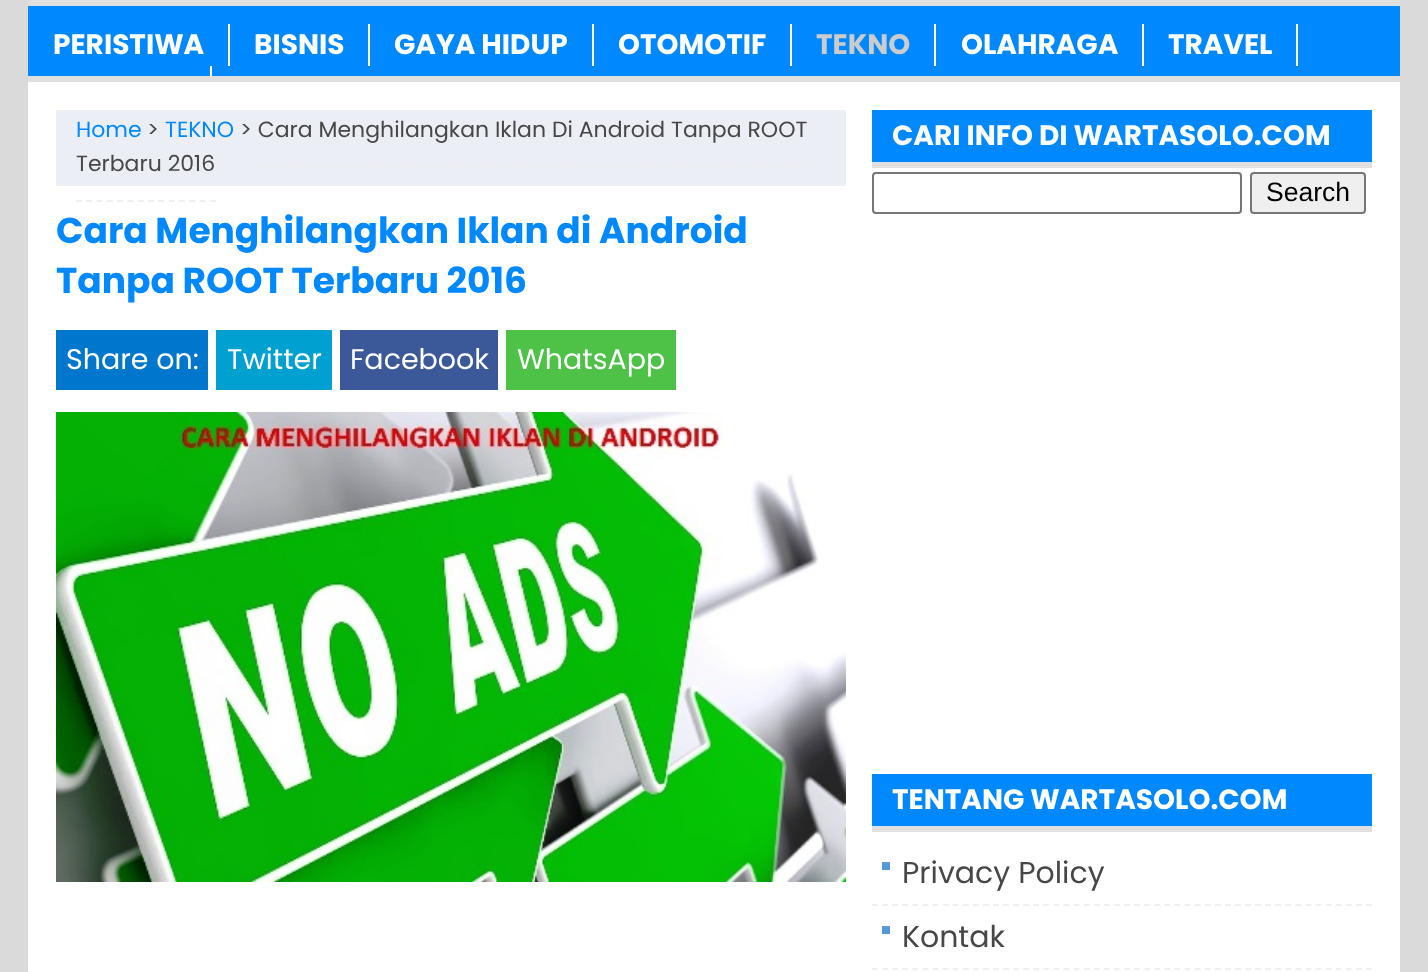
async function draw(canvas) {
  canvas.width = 1428;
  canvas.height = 972;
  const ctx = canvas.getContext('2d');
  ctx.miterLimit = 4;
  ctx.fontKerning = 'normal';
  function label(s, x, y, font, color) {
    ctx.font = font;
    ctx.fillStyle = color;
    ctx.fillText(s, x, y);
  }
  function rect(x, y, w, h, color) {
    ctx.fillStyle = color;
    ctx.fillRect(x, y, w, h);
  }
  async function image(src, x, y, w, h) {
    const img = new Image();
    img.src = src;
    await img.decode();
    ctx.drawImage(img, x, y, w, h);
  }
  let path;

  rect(0, 0, 1428, 972, '#dadada');
  rect(28, 82, 1372, 890, '#fff');
  rect(28, 6, 1372, 70, '#08f');
  rect(28, 0, 1372, 6, '#dfdfdf');
  rect(28, 76, 1372, 6, '#dfdfdf');
  rect(228, 24, 2, 42, '#fff');
  label('PERISTIWA', 53, 54, 'bold 28px Poppins', '#fff');
  rect(368, 24, 2, 42, '#fff');
  label('BISNIS', 254, 54, 'bold 28px Poppins', '#fff');
  rect(592, 24, 2, 42, '#fff');
  label('GAYA HIDUP', 394, 54, 'bold 28px Poppins', '#fff');
  rect(790, 24, 2, 42, '#fff');
  label('OTOMOTIF', 618, 54, 'bold 28px Poppins', '#fff');
  rect(934, 24, 2, 42, '#fff');
  label('TEKNO', 816, 54, 'bold 28px Poppins', '#ccc');
  rect(1142, 24, 2, 42, '#fff');
  label('OLAHRAGA', 961, 54, 'bold 28px Poppins', '#fff');
  rect(1296, 24, 2, 42, '#fff');
  label('TRAVEL', 1168, 54, 'bold 28px Poppins', '#fff');
  rect(210, 66, 2, 10, '#fff');
  rect(56, 110, 790, 76, '#eceef5');
  label('Home', 76, 137, '22px Poppins', '#08f');
  label('>', 147, 137, '22px Poppins', '#474747');
  label('TEKNO', 165, 137, '22px Poppins', '#08f');
  label('> Cara Menghilangkan Iklan Di Android Tanpa ROOT', 240, 137, '22px Poppins', '#474747');
  label('Terbaru 2016', 76, 171, '22px Poppins', '#474747');
  path = new Path2D('M258 167H808');
  ctx.strokeStyle = '#efefef';
  ctx.lineWidth = 2;
  ctx.setLineDash([6, 4.08]);
  ctx.stroke(path);
  path = new Path2D('M76 201H216');
  ctx.setLineDash([6, 4.3]);
  ctx.stroke(path);
  label('Cara Menghilangkan Iklan di Android', 56, 243, 'bold 36px Poppins', '#08f');
  label('Tanpa ROOT Terbaru 2016', 56, 293, 'bold 36px Poppins', '#08f');
  rect(56, 330, 152, 60, '#07c');
  label('Share on:', 66, 369, '28.5px Poppins', '#fff');
  rect(216, 330, 116, 60, '#00a0d1');
  label('Twitter', 227, 369, '28.5px Poppins', '#fff');
  rect(340, 330, 158, 60, '#3b5998');
  label('Facebook', 350, 369, '28.5px Poppins', '#fff');
  rect(506, 330, 170, 60, '#4dc247');
  label('WhatsApp', 517, 369, '28.5px Poppins', '#fff');
  await image('assets/img1.png', 56, 412, 790, 470);
  rect(872, 110, 500, 52, '#08f');
  rect(872, 162, 500, 6, '#dfdfdf');
  label('CARI INFO DI WARTASOLO.COM', 892, 145, 'bold 28px Poppins', '#fff');
  ctx.beginPath();
  ctx.roundRect(873, 173, 368, 40, 3);
  ctx.strokeStyle = '#767676';
  ctx.setLineDash([]);
  ctx.stroke();
  ctx.fillStyle = '#efefef';
  ctx.beginPath();
  ctx.roundRect(1251, 173, 114, 40, 3);
  ctx.fill();
  ctx.stroke();
  label('Search', 1266, 201, '26.5px Liberation Sans', '#000');
  rect(872, 774, 500, 52, '#08f');
  rect(872, 826, 500, 6, '#dfdfdf');
  label('TENTANG WARTASOLO.COM', 892, 809, 'bold 28px Poppins', '#fff');
  await image('assets/img2.png', 882, 862, 8, 8);
  path = new Path2D('M872 905H1372');
  ctx.strokeStyle = '#efefef';
  ctx.setLineDash([6, 4.08]);
  ctx.stroke(path);
  label('Privacy Policy', 902, 883, '30px Poppins', '#474747');
  await image('assets/img2.png', 882, 926, 8, 8);
  path = new Path2D('M872 969H1372');
  ctx.stroke(path);
  label('Kontak', 902, 947, '30px Poppins', '#474747');
}

draw(document.querySelector('canvas'));
